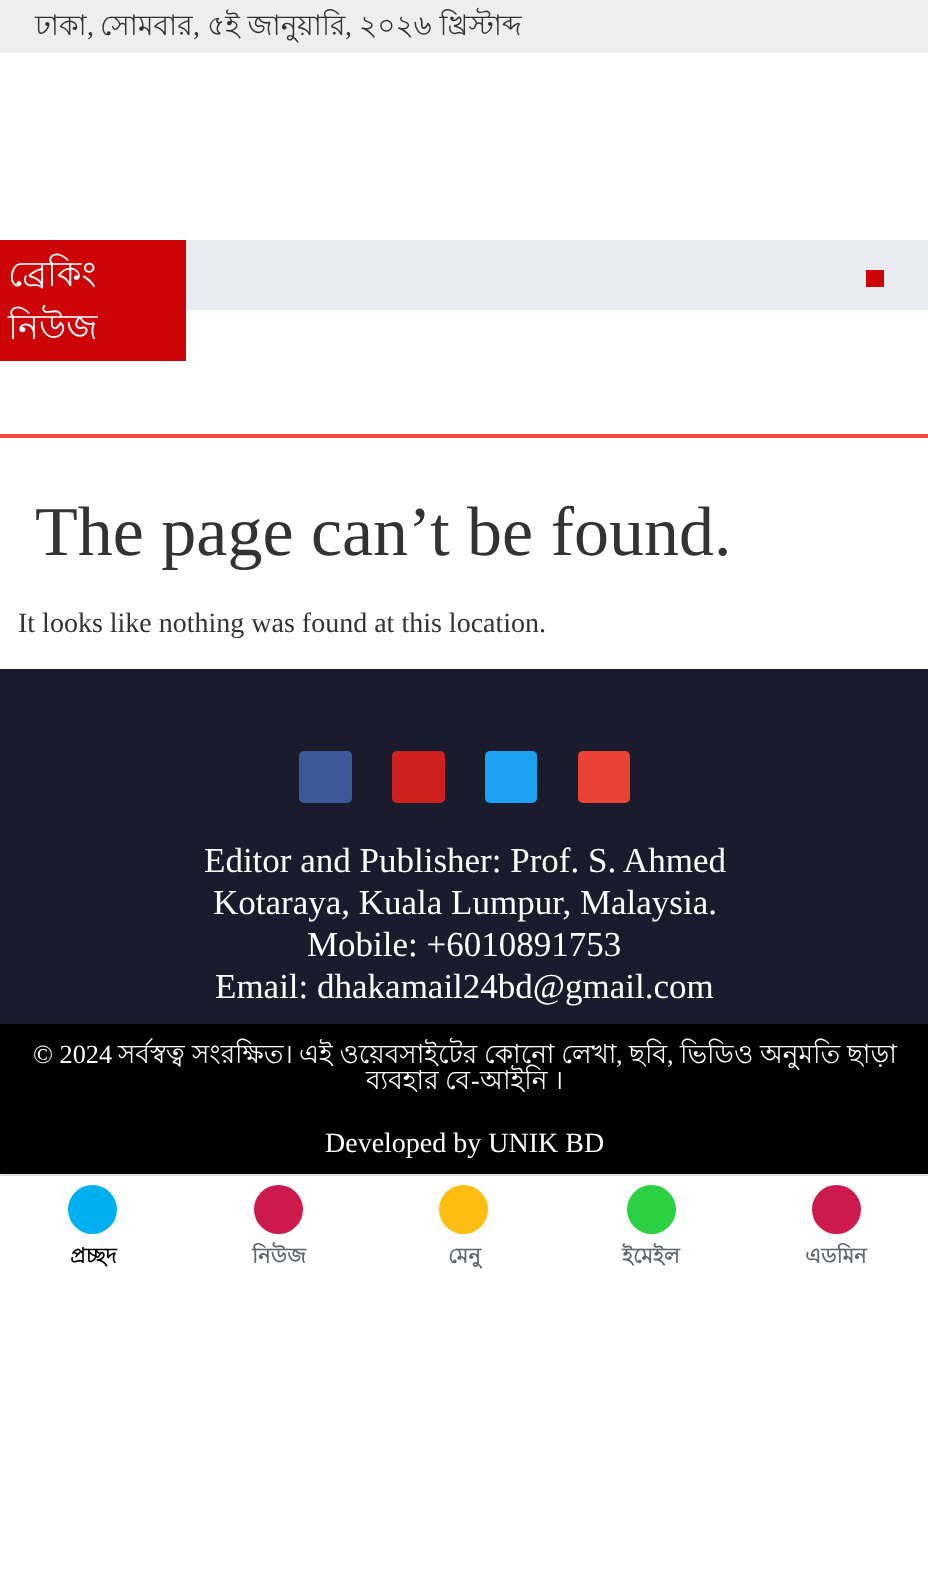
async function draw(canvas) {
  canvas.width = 928;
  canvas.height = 1569;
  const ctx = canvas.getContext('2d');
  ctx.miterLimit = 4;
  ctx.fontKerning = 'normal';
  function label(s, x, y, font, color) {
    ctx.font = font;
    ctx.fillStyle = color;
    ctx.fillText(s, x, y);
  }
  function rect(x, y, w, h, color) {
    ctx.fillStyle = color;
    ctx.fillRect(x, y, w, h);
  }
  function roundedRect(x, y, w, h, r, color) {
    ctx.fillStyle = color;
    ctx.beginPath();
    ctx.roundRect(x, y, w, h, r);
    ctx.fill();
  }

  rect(0, 0, 928, 1569, '#fff');
  rect(0, 0, 928, 53, '#eee');
  label('ঢাকা', 35, 35, '28px Lohit Bengali', '#333');
  label(',', 87, 35, '28px Liberation Serif', '#333');
  label('সোমবার', 100, 35, '28px Lohit Bengali', '#333');
  label(',', 193, 35, '28px Liberation Serif', '#333');
  label('৫ই জানুয়ারি', 207, 35, '28px Lohit Bengali', '#333');
  label(',', 345, 35, '28px Liberation Serif', '#333');
  label('২০২৬ খ্রিস্টাব্দ', 359, 35, '28px Lohit Bengali', '#333');
  rect(0, 240, 186, 121, '#ce0507');
  label('ব্রেকিং', 8, 286, '35px Lohit Bengali', '#fff');
  label('নিউজ', 8, 339, '35px Lohit Bengali', '#fff');
  rect(186, 240, 742, 70, '#e9edf1');
  rect(866, 270, 18, 17, '#ce0507');
  rect(0, 434, 928, 4, '#f74646');
  label('The page can’t be found.', 35, 555, '70px Liberation Serif', '#333');
  label('It looks like nothing was found at this location.', 18, 632, '28px Liberation Serif', '#333');
  rect(0, 669, 928, 355, '#1a1c2d');
  roundedRect(299, 751, 53, 52, 5, '#3b5998');
  roundedRect(392, 751, 53, 52, 5, '#cd201f');
  roundedRect(485, 751, 52, 52, 5, '#1da1f2');
  roundedRect(578, 751, 52, 52, 5, '#ea4335');
  label('Editor and Publisher: Prof. S. Ahmed', 204, 872, '35px Liberation Serif', '#fff');
  label('Kotaraya, Kuala Lumpur, Malaysia.', 213, 914, '35px Liberation Serif', '#fff');
  label('Mobile: +6010891753', 307, 956, '35px Liberation Serif', '#fff');
  label('Email: dhakamail24bd@gmail.com', 215, 998, '35px Liberation Serif', '#fff');
  rect(0, 1024, 928, 150, '#000');
  label('© 2024', 33, 1063, '26.25px Liberation Serif', '#fff');
  label('সর্বস্বত্ব', 118, 1063, '26.25px Lohit Bengali', '#fff');
  label('সংরক্ষিত।', 192, 1063, '26.25px Lohit Bengali', '#fff');
  ctx.wordSpacing = '-0.5px';
  label('এই ওয়েবসাইটের কোনো লেখা', 299, 1063, '26.25px Lohit Bengali', '#fff');
  ctx.wordSpacing = '0px';
  label(',', 616, 1063, '26.25px Liberation Serif', '#fff');
  label('ছবি', 629, 1063, '26.25px Lohit Bengali', '#fff');
  label(',', 667, 1063, '26.25px Liberation Serif', '#fff');
  ctx.wordSpacing = '-0.5px';
  label('ভিডিও অনুমতি ছাড়া', 680, 1063, '26.25px Lohit Bengali', '#fff');
  ctx.wordSpacing = '-1px';
  label('ব্যবহার বে', 366, 1089, '26.25px Lohit Bengali', '#fff');
  ctx.wordSpacing = '0px';
  label('-', 471, 1089, '26.25px Liberation Serif', '#fff');
  ctx.wordSpacing = '-1px';
  label('আইনি ।', 480, 1089, '26.25px Lohit Bengali', '#fff');
  ctx.wordSpacing = '0px';
  label('Developed by UNIK BD', 325, 1152, '28px Liberation Serif', '#fff');
  ctx.save();
  ctx.beginPath();
  ctx.rect(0, 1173, 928, 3);
  ctx.clip();
  ctx.fillStyle = '#00000029';
  ctx.filter = 'blur(1px)';
  ctx.beginPath();
  ctx.rect(0, 1174, 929, 121);
  ctx.fill();
  ctx.filter = 'none';
  ctx.restore();
  ctx.fillStyle = '#00afef';
  ctx.beginPath();
  ctx.arc(92.5, 1209.5, 24.5, 0, 2 * Math.PI);
  ctx.fill();
  label('প্রচ্ছদ', 70, 1263, 'bold 21px Lohit Bengali', '#000');
  ctx.fillStyle = '#cd1a4d';
  ctx.beginPath();
  ctx.arc(278.5, 1209.5, 24.5, 0, 2 * Math.PI);
  ctx.fill();
  label('নিউজ', 252, 1263, 'bold 21px Lohit Bengali', '#606770');
  ctx.fillStyle = '#fdbe11';
  ctx.beginPath();
  ctx.arc(463.5, 1209.5, 24.5, 0, 2 * Math.PI);
  ctx.fill();
  label('মেনু', 448, 1263, 'bold 21px Lohit Bengali', '#606770');
  ctx.fillStyle = '#2bd142';
  ctx.beginPath();
  ctx.arc(651.5, 1209.5, 24.5, 0, 2 * Math.PI);
  ctx.fill();
  label('ইমেইল', 622, 1263, 'bold 21px Lohit Bengali', '#606770');
  ctx.fillStyle = '#cd1a4d';
  ctx.beginPath();
  ctx.arc(836.5, 1209.5, 24.5, 0, 2 * Math.PI);
  ctx.fill();
  label('এডমিন', 805, 1263, 'bold 21px Lohit Bengali', '#606770');
}

draw(document.querySelector('canvas'));
